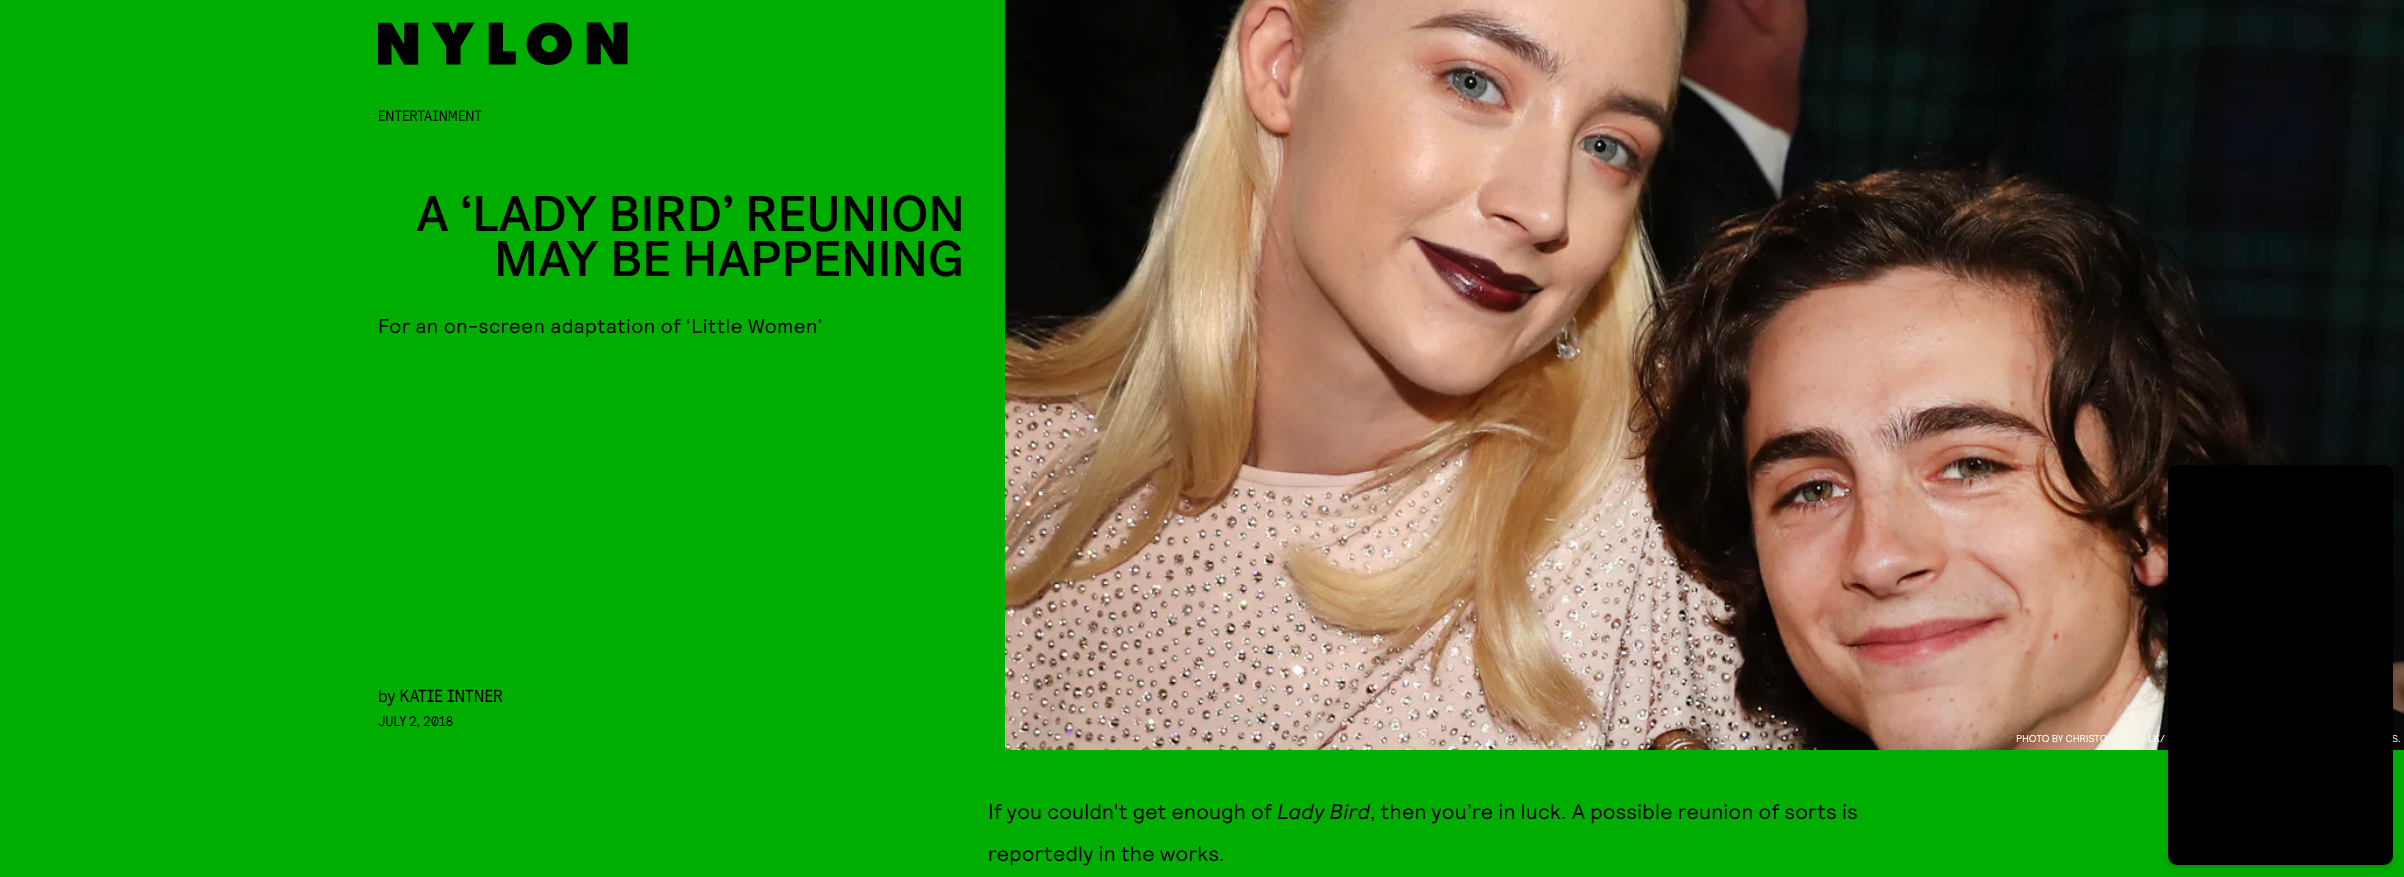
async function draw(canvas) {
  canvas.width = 2404;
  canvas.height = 877;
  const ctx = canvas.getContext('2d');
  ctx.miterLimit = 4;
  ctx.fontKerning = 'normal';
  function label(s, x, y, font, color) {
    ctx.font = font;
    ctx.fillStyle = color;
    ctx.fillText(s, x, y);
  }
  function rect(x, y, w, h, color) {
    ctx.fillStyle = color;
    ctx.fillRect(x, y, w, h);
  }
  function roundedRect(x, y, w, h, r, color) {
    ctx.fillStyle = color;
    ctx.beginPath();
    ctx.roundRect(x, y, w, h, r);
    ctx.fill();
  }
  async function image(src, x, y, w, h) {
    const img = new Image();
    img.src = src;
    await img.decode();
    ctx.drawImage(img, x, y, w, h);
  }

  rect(0, 0, 2404, 877, '#00ae01');
  await image('assets/img1.png', 378, 22, 250, 43);
  label('ENTERTAINMENT', 378, 121, '15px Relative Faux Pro', '#000');
  label('A ‘LADY BIRD’ REUNION', 416, 231, '500 50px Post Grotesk', '#000');
  label('MAY BE HAPPENING', 494, 276, '500 50px Post Grotesk', '#000');
  ctx.letterSpacing = '0.5px';
  label('For an on-screen adaptation of ‘Little Women’', 378, 333, '20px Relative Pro', '#000');
  ctx.letterSpacing = '0px';
  label('by KATIE INTNER', 378, 702, '17.5px Relative Faux Pro', '#000');
  label('JULY 2, 2018', 378, 726, '14px Relative Faux Pro', '#000');
  await image('assets/img2.png', 1005, 0, 1399, 750);
  label('PHOTO BY CHRISTO', 2016, 742, '10px Relative Pro', '#fff');
  label('LK/', 2148, 742, '10px Relative Pro', '#fff');
  label('S.', 2392, 742, '10px Relative Pro', '#fff');
  ctx.letterSpacing = '0.25px';
  label('If you couldn\'t get enough of', 988, 819, '21px Relative Pro', '#000');
  label('Lady Bird', 1277, 819, 'italic 21px Relative Pro', '#000');
  label(', then you’re in luck. A possible reunion of sorts is', 1370, 819, '21px Relative Pro', '#000');
  label('reportedly in the works.', 988, 861, '21px Relative Pro', '#000');
  ctx.fillStyle = '#0000001a';
  ctx.filter = 'blur(2.5px)';
  ctx.beginPath();
  ctx.roundRect(2170, 470, 220, 395, 6);
  ctx.fill();
  ctx.filter = 'none';
  ctx.filter = 'blur(4px)';
  ctx.beginPath();
  ctx.roundRect(2169, 471, 222, 398, 8);
  ctx.fill();
  ctx.filter = 'none';
  roundedRect(2168, 465, 225, 400, 9, '#000');
}

draw(document.querySelector('canvas'));
